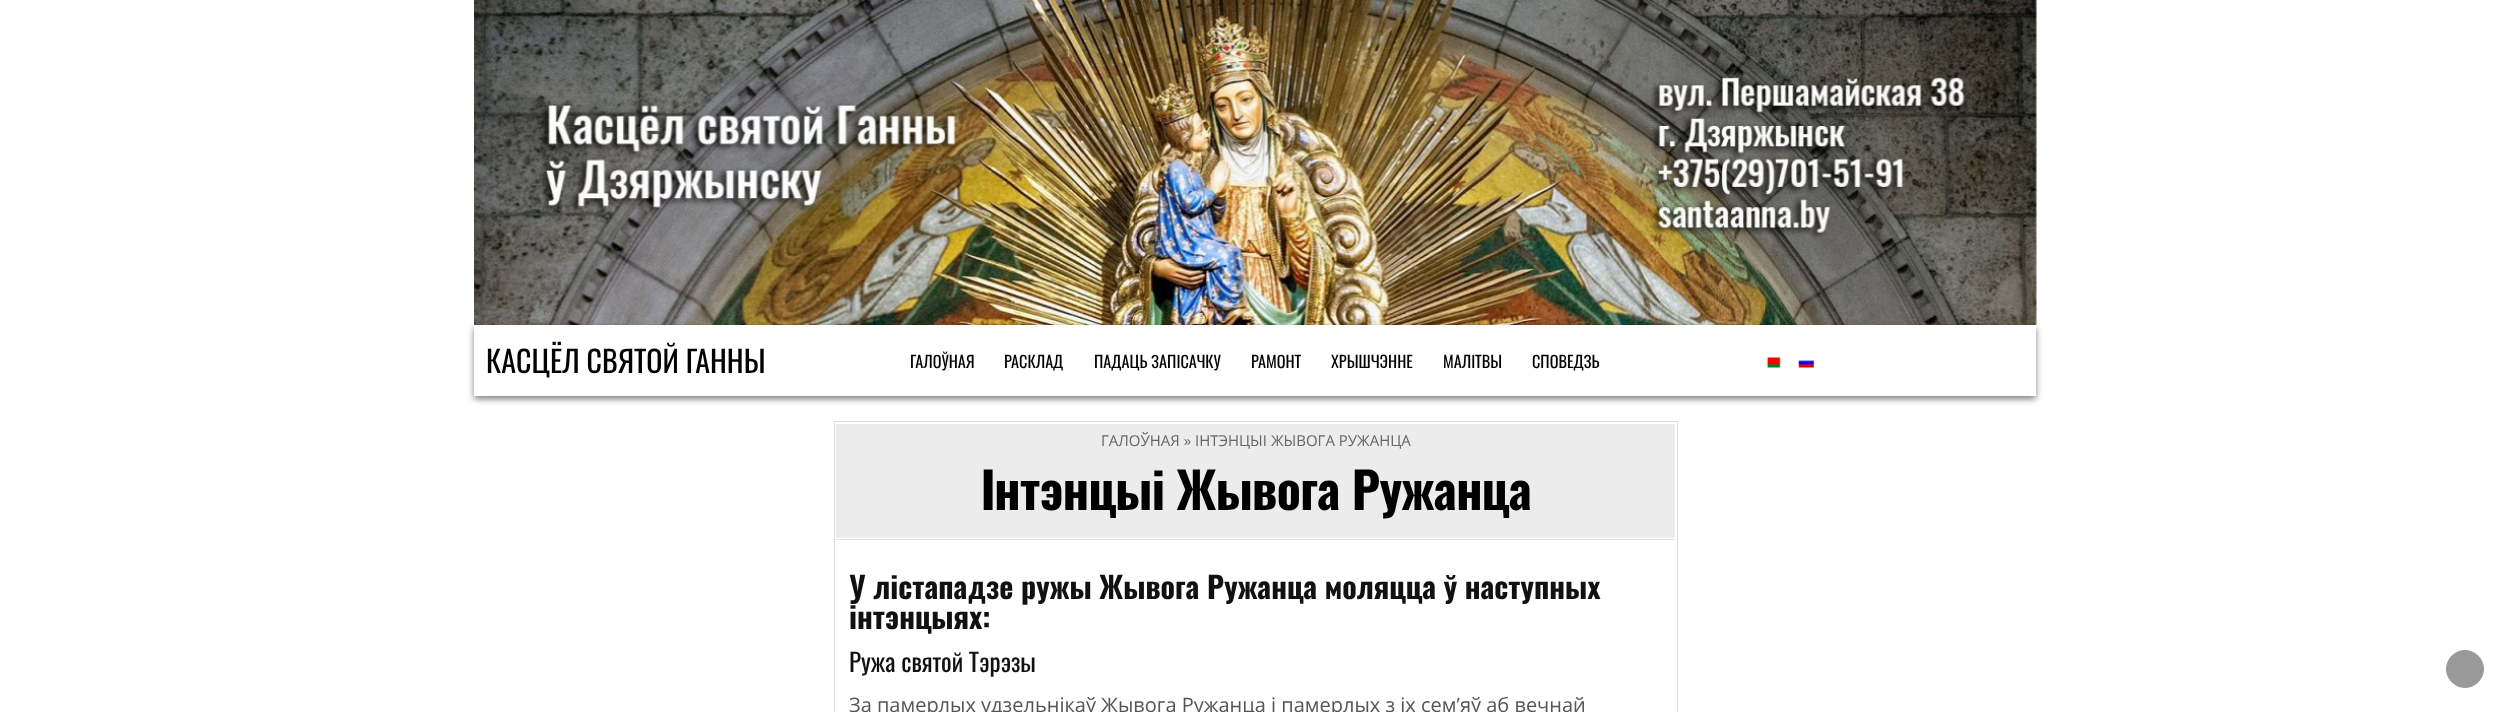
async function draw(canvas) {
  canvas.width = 2508;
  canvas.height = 712;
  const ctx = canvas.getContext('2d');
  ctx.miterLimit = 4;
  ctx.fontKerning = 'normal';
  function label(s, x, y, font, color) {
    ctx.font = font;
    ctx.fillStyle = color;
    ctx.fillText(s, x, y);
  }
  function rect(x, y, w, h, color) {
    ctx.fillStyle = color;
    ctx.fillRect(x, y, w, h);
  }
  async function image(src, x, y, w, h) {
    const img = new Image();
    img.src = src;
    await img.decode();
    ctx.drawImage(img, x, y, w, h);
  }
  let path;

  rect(0, 0, 2508, 712, '#fff');
  await image('assets/img1.png', 474, 0, 1563, 325);
  ctx.save();
  path = new Path2D('M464 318H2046V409H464ZM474 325H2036V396H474Z');
  ctx.clip(path, 'evenodd');
  ctx.fillStyle = '#00000080';
  ctx.filter = 'blur(3px)';
  ctx.beginPath();
  ctx.rect(474, 328, 1562, 71);
  ctx.fill();
  ctx.filter = 'none';
  ctx.restore();
  label('КАСЦЁЛ СВЯТОЙ ГАННЫ', 486, 373, '30px Oswald', '#000');
  label('ГАЛОЎНАЯ', 910, 368, '16.25px Oswald', '#000');
  label('РАСКЛАД', 1004, 368, '16.25px Oswald', '#000');
  label('ПАДАЦЬ ЗАПІСАЧКУ', 1094, 368, '16.25px Oswald', '#000');
  label('РАМОНТ', 1251, 368, '16.25px Oswald', '#000');
  label('ХРЫШЧЭННЕ', 1331, 368, '16.25px Oswald', '#000');
  label('МАЛІТВЫ', 1443, 368, '16.25px Oswald', '#000');
  label('СПОВЕДЗЬ', 1532, 368, '16.25px Oswald', '#000');
  await image('assets/img2.png', 1766, 357, 15, 11);
  await image('assets/img3.png', 1798, 359, 16, 9);
  ctx.strokeStyle = '#ddd';
  ctx.strokeRect(834.5, 421.5, 843, 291);
  rect(836, 424, 839, 114, '#ececec');
  rect(836, 539, 839, 1, '#ddd');
  label('ГАЛОЎНАЯ » ІНТЭНЦЫІ ЖЫВОГА РУЖАНЦА', 1101, 446, '15px Open Sans', '#666');
  ctx.letterSpacing = '-0.6px';
  label('Інтэнцыі Жывога Ружанца', 981, 510, 'bold 50px Oswald', '#000');
  ctx.letterSpacing = '0px';
  label('У лістападзе ружы Жывога Ружанца моляцца ў наступных', 849, 599, 'bold 30px Oswald', '#111');
  label('інтэнцыях:', 849, 629, 'bold 30px Oswald', '#111');
  label('Ружа святой Тэрэзы', 849, 672, '25px Oswald', '#111');
  label('За памерлых удзельнікаў Жывога Ружанца і памерлых з іх сем’яў аб вечнай', 849, 712, '20px Open Sans', '#555');
  ctx.fillStyle = '#999';
  ctx.beginPath();
  ctx.arc(2465, 669, 18.5, 0, 2 * Math.PI);
  ctx.fill();
  ctx.strokeStyle = '#999';
  ctx.stroke();
}

draw(document.querySelector('canvas'));
